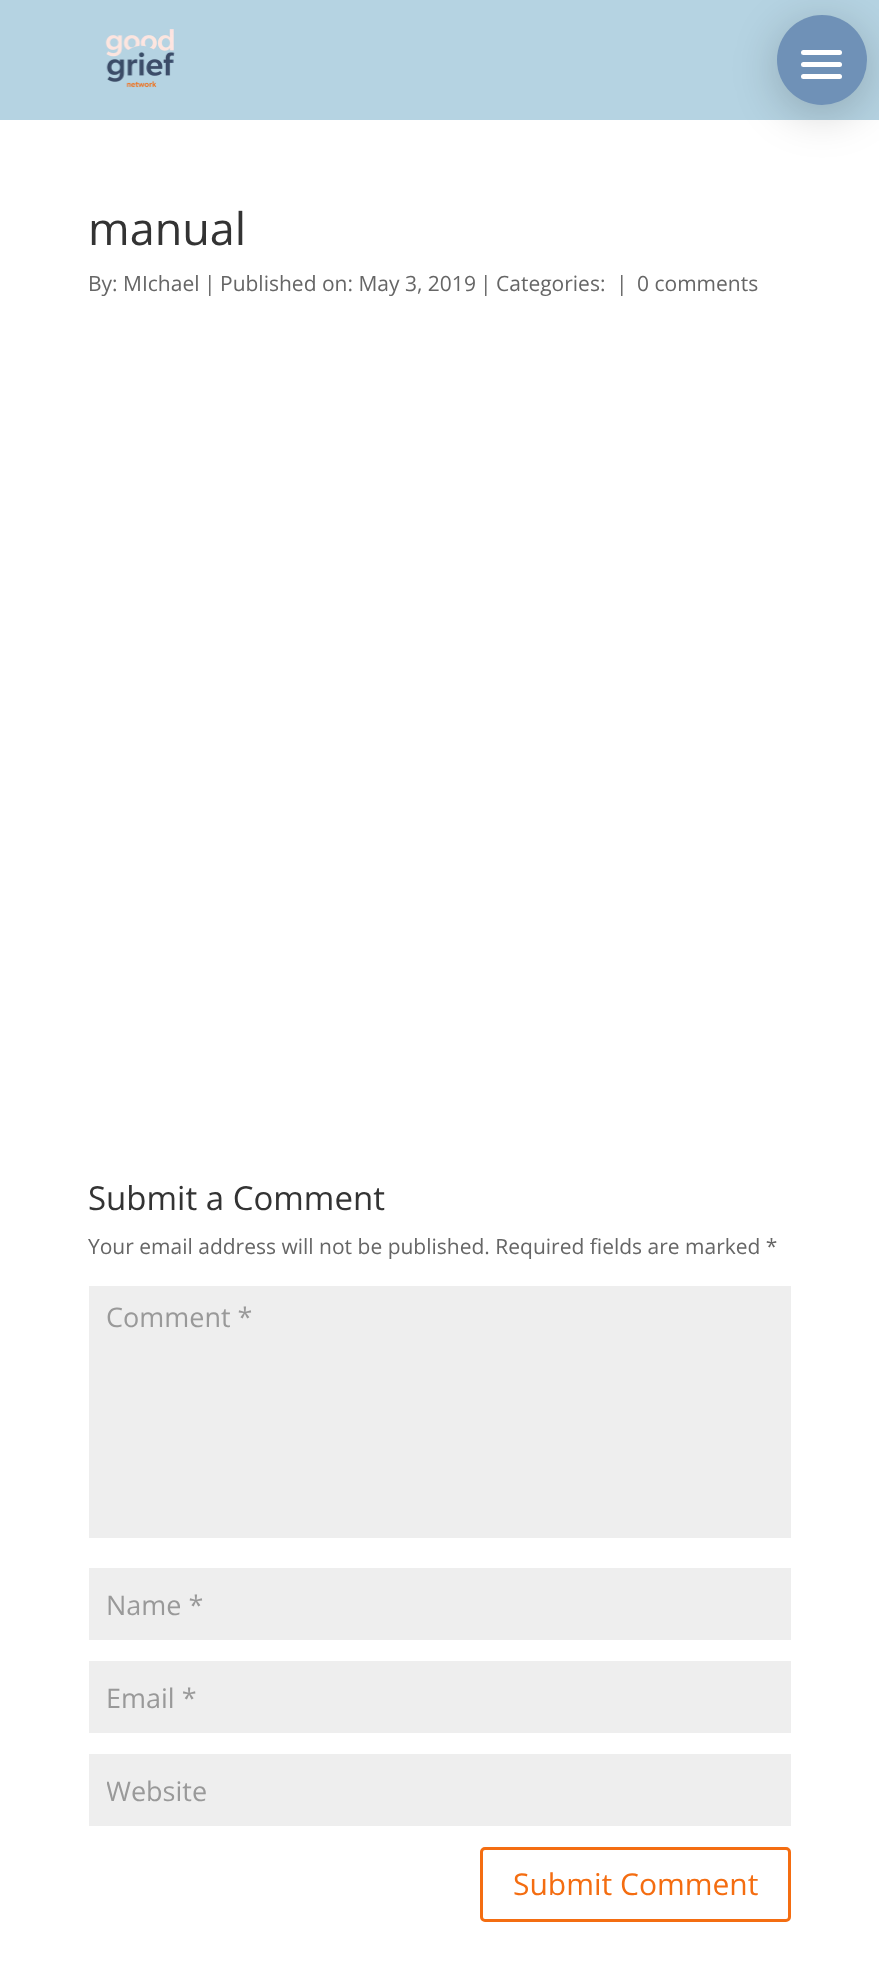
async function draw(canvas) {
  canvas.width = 879;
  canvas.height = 1986;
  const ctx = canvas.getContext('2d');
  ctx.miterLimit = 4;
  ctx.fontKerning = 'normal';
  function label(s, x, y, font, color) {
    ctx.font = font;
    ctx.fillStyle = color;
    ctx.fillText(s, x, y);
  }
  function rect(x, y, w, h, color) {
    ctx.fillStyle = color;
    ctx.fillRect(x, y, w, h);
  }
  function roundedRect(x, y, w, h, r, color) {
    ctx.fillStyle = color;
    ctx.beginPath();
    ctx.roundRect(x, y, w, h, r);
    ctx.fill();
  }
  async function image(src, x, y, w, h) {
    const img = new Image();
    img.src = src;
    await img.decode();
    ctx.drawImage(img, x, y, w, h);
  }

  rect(0, 0, 879, 1986, '#fff');
  rect(0, 0, 879, 120, '#b5d3e2');
  ctx.fillStyle = '#00000033';
  ctx.filter = 'blur(22.5px)';
  ctx.beginPath();
  ctx.roundRect(777, 24, 90, 90, 45);
  ctx.fill();
  ctx.filter = 'none';
  ctx.fillStyle = '#6f91b7';
  ctx.beginPath();
  ctx.arc(822, 60, 45, 0, 2 * Math.PI);
  ctx.fill();
  roundedRect(801, 62, 41, 5, 2.5, '#fff');
  roundedRect(801, 50, 41, 5, 2.5, '#fff');
  roundedRect(801, 74, 41, 5, 2.5, '#fff');
  await image('assets/img1.png', 105, 29, 70, 59);
  label('manual', 88, 245, '45px Open Sans', '#333');
  label('By: MIchael', 88, 291, '21px Open Sans', '#666');
  label('|', 204, 291, '21px Open Sans', '#666');
  label('Published on: May 3, 2019', 220, 291, '21px Open Sans', '#666');
  label('|', 480, 291, '21px Open Sans', '#666');
  label('Categories:', 496, 291, '21px Open Sans', '#666');
  label('|', 616, 291, '21px Open Sans', '#666');
  label('0 comments', 637, 291, '21px Open Sans', '#666');
  label('Submit a Comment', 88, 1210, '33px Open Sans', '#333');
  label('Your email address will not be published. Required fields are marked *', 88, 1254, '21px Open Sans', '#666');
  rect(89, 1286, 702, 252, '#eee');
  label('Comment *', 106, 1327, '27px Open Sans', '#999');
  rect(89, 1568, 702, 72, '#eee');
  label('Name *', 106, 1615, '27px Open Sans', '#999');
  rect(89, 1661, 702, 72, '#eee');
  label('Email *', 106, 1708, '27px Open Sans', '#999');
  rect(89, 1754, 702, 72, '#eee');
  ctx.save();
  ctx.beginPath();
  ctx.rect(107, 1772, 666, 36);
  ctx.clip();
  label('Website', 106, 1801, '27px Open Sans', '#999');
  ctx.restore();
  ctx.beginPath();
  ctx.roundRect(481.5, 1848.5, 308, 72, 3.5);
  ctx.strokeStyle = '#f46d11';
  ctx.lineWidth = 3;
  ctx.stroke();
  label('Submit Comment', 513, 1895, '30px Open Sans', '#f46d11');
}

draw(document.querySelector('canvas'));
